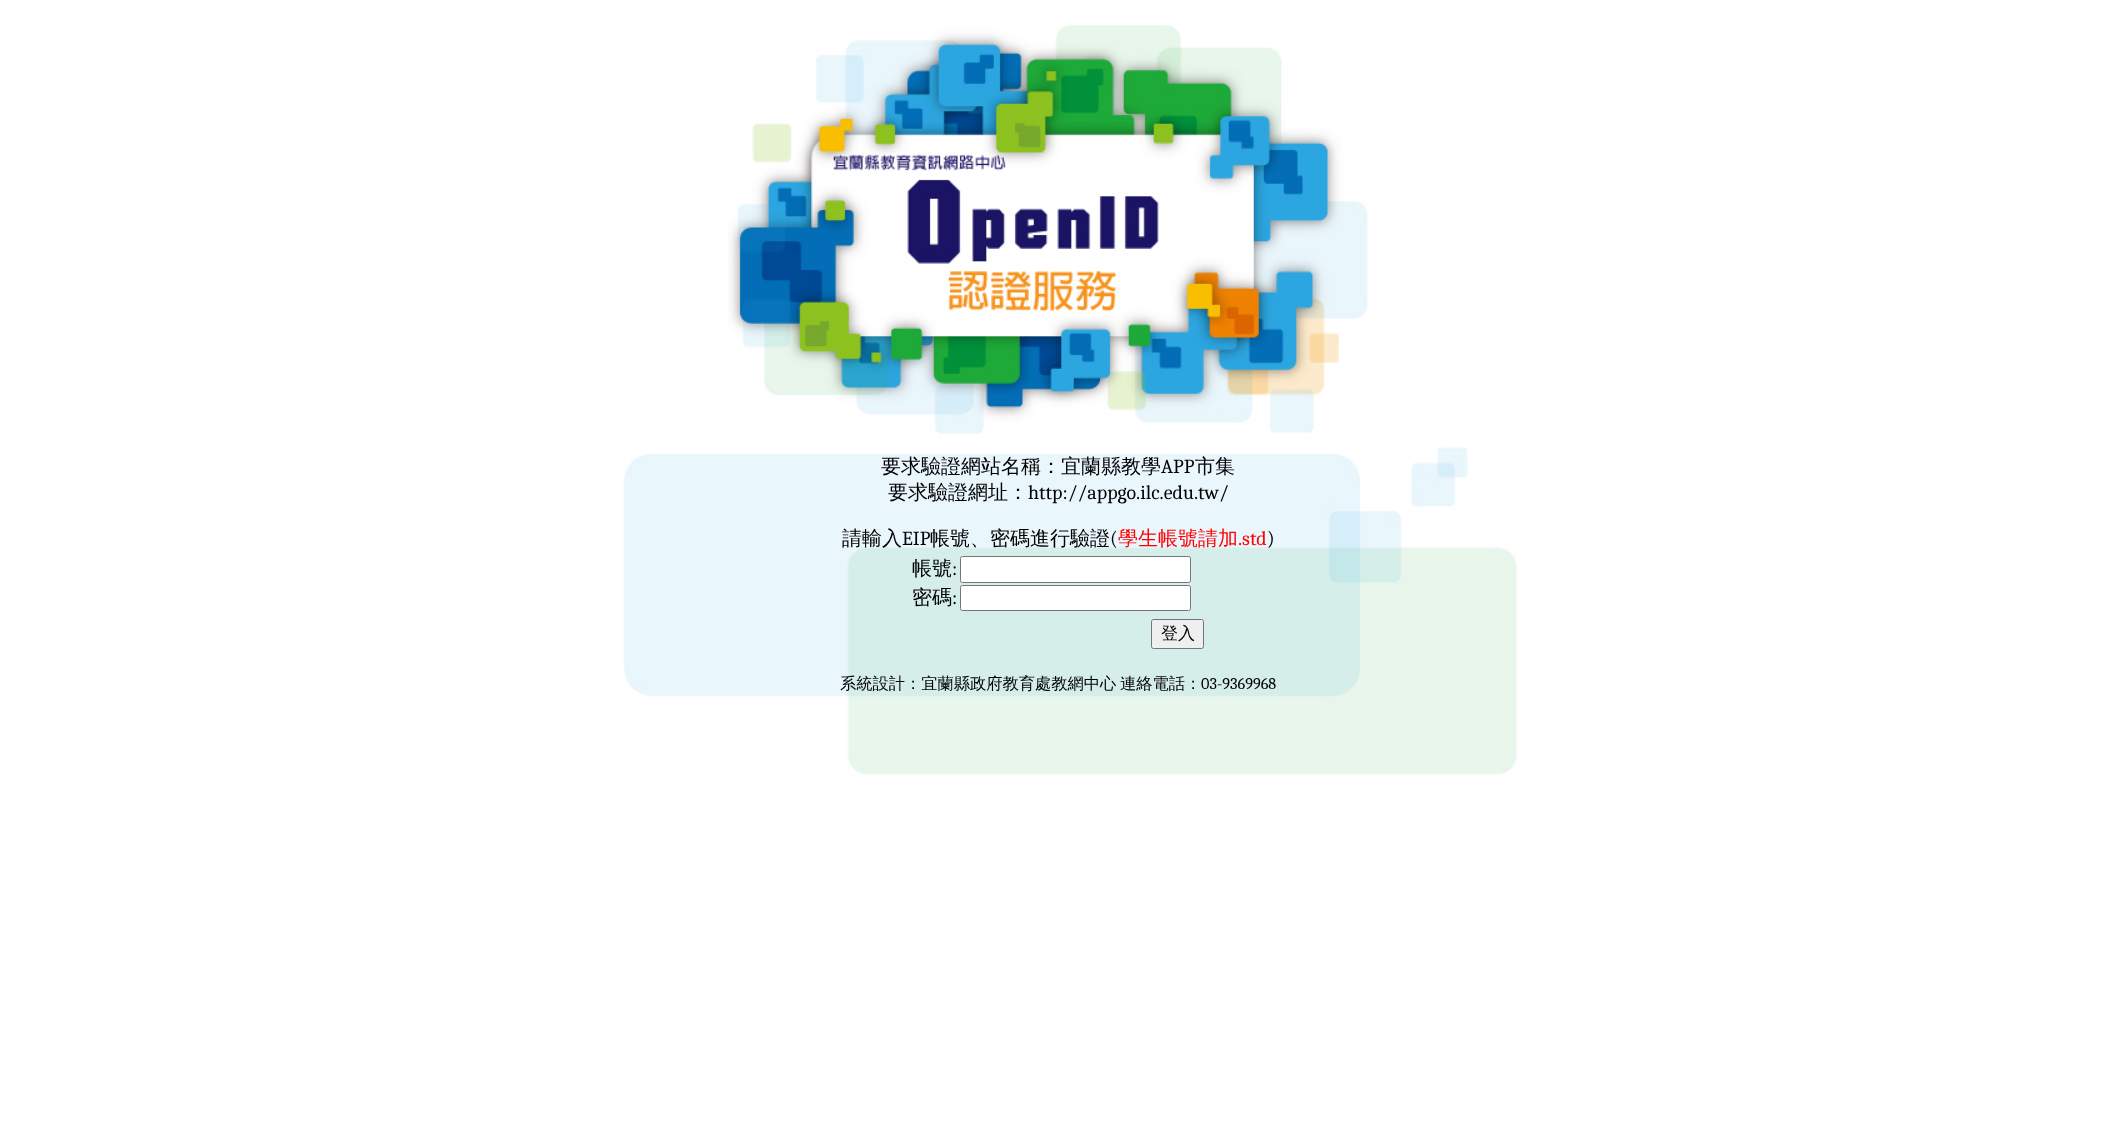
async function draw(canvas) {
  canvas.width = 2104;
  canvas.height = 1140;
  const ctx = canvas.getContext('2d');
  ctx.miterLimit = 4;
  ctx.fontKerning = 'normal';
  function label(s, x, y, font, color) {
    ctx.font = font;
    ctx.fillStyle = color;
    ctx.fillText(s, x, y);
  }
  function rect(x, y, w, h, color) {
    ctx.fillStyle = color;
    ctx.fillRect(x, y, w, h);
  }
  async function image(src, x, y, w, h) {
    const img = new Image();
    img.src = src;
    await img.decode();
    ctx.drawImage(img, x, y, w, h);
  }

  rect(0, 0, 2104, 1140, '#fff');
  await image('assets/img3.png', 746, 453, 624, 322);
  await image('assets/img1.png', 728, 25, 740, 429);
  await image('assets/img2.png', 623, 453, 123, 244);
  label('要求驗證網站名稱：宜蘭縣教學', 881, 473, '500 20px WenQuanYi Zen Hei', '#000');
  label('APP', 1161, 473, '20px Caladea', '#000');
  label('市集', 1195, 473, '500 20px WenQuanYi Zen Hei', '#000');
  label('要求驗證網址：', 888, 499, '500 20px WenQuanYi Zen Hei', '#000');
  label('http://appgo.ilc.edu.tw/', 1028, 499, '20px Caladea', '#000');
  label('請輸入', 842, 545, '500 20px WenQuanYi Zen Hei', '#000');
  label('EIP', 902, 545, '20px Caladea', '#000');
  label('帳號、密碼進行驗證', 930, 545, '500 20px WenQuanYi Zen Hei', '#000');
  label('(', 1110, 545, '20px Caladea', '#000');
  label('學生帳號請加', 1118, 545, '500 20px WenQuanYi Zen Hei', '#f00');
  label('.std', 1238, 545, '20px Caladea', '#f00');
  label(')', 1267, 545, '20px Caladea', '#000');
  label('帳號', 912, 575, '500 20px WenQuanYi Zen Hei', '#000');
  label(':', 952, 575, '20px Caladea', '#000');
  ctx.fillStyle = '#fff';
  ctx.beginPath();
  ctx.roundRect(960.5, 556.5, 230, 26, 2);
  ctx.fill();
  ctx.strokeStyle = '#767676';
  ctx.stroke();
  label('密碼', 912, 604, '500 20px WenQuanYi Zen Hei', '#000');
  label(':', 952, 604, '20px Caladea', '#000');
  ctx.fillStyle = '#fff';
  ctx.beginPath();
  ctx.roundRect(960.5, 585.5, 230, 25, 2);
  ctx.fill();
  ctx.stroke();
  ctx.fillStyle = '#efefef';
  ctx.beginPath();
  ctx.roundRect(1151.5, 619.5, 52, 29, 2);
  ctx.fill();
  ctx.stroke();
  label('登入', 1161, 639, '500 17px WenQuanYi Zen Hei', '#000');
  ctx.wordSpacing = '-1px';
  label('系統設計：宜蘭縣政府教育處教網中心 連絡電話：', 840, 689, '500 16.25px WenQuanYi Zen Hei', '#000');
  ctx.wordSpacing = '0px';
  label('03-9369968', 1201, 689, '16.25px Caladea', '#000');
  await image('assets/img4.png', 1370, 454, 147, 321);
}

draw(document.querySelector('canvas'));
